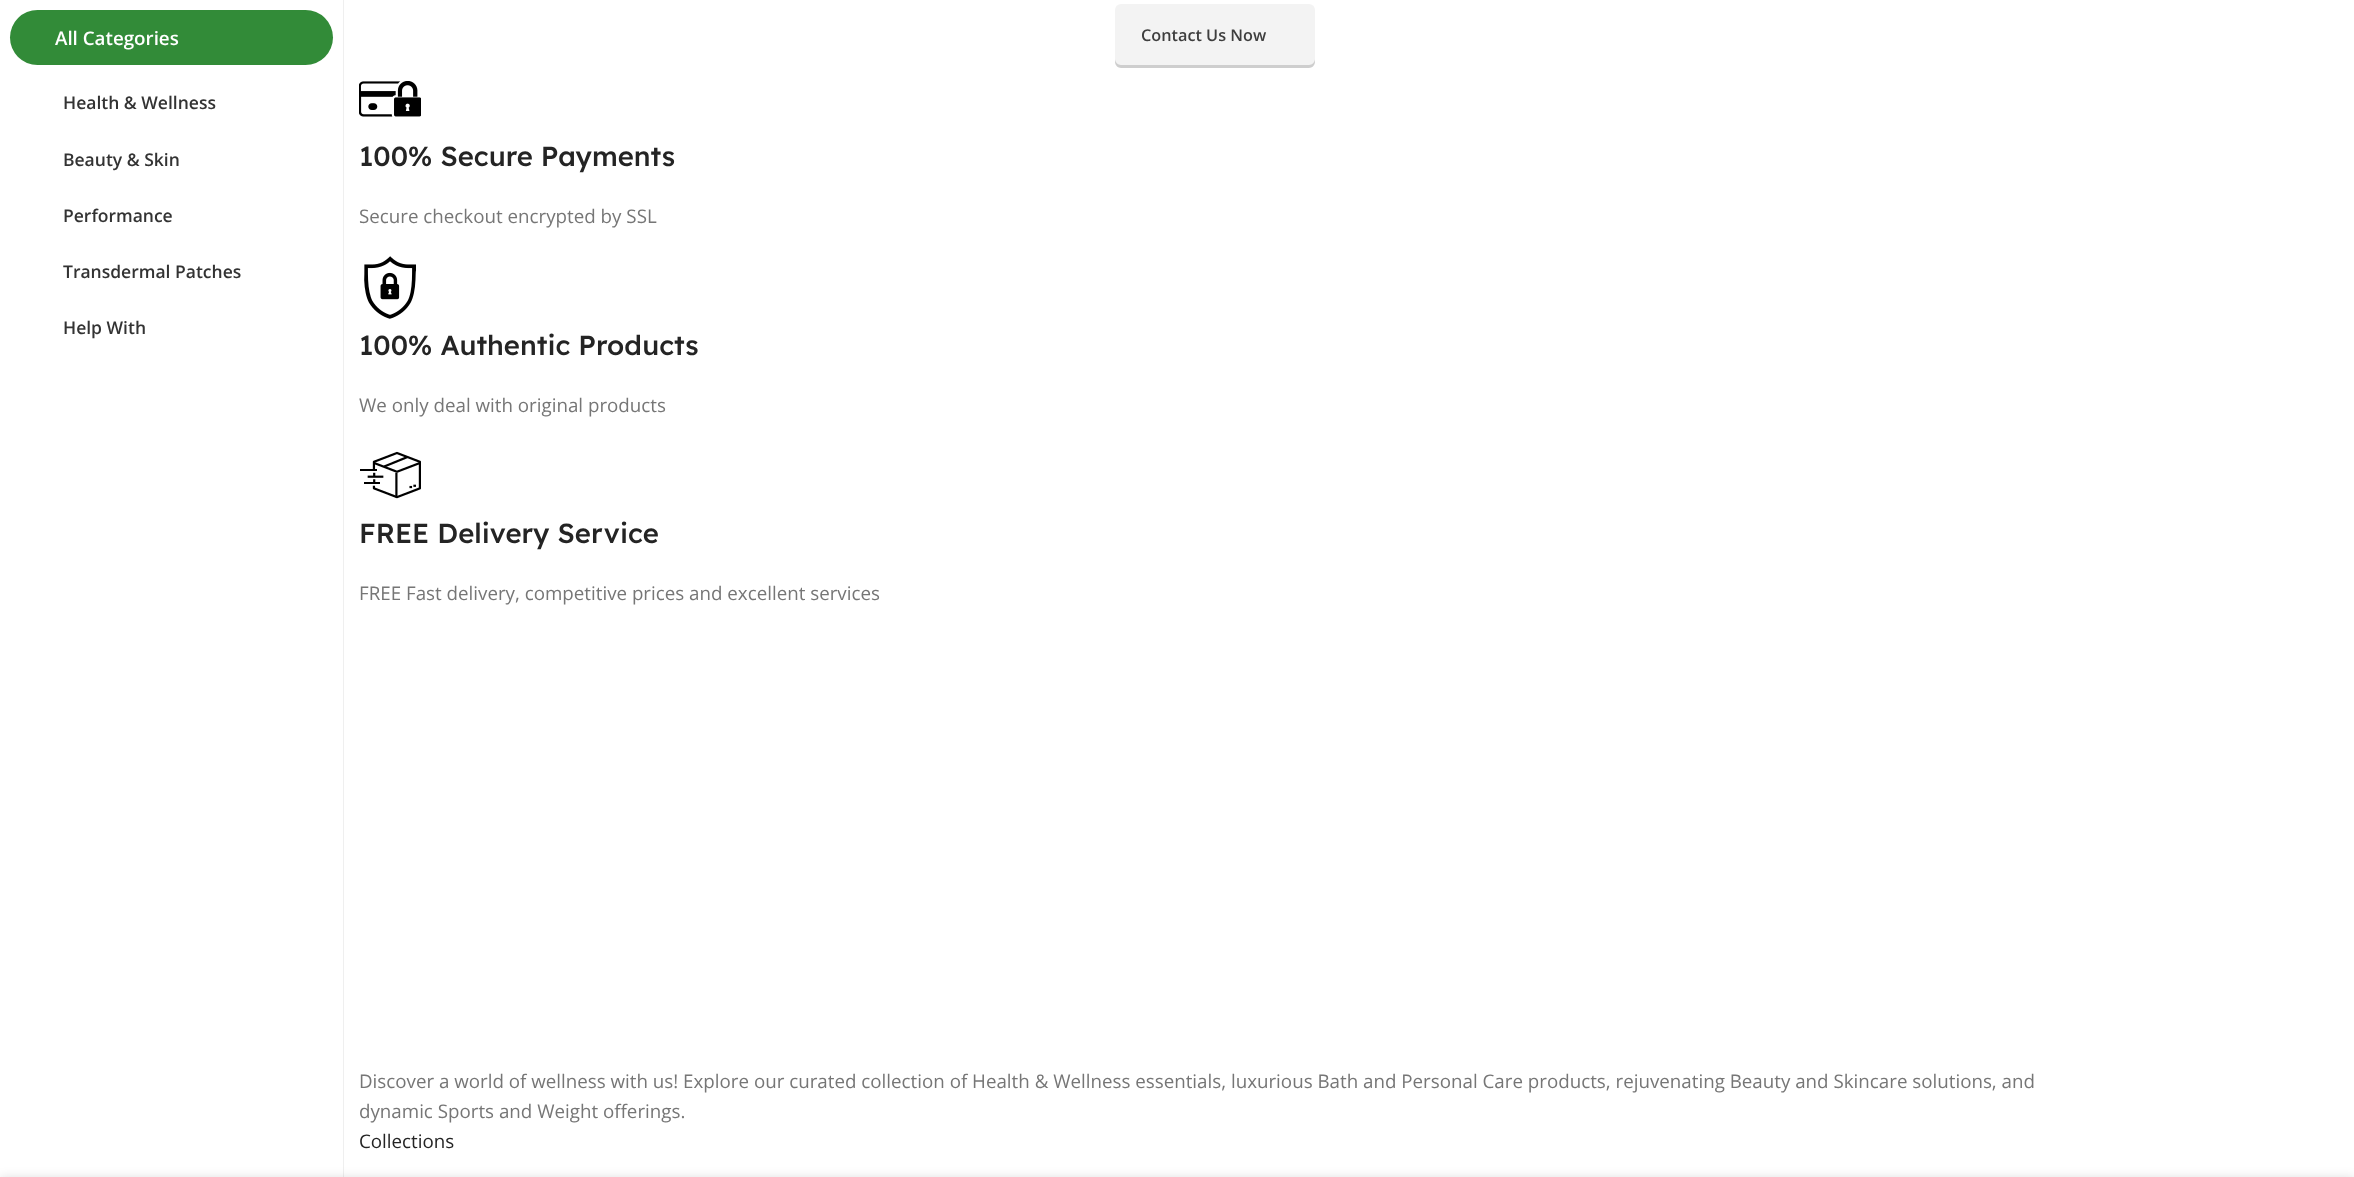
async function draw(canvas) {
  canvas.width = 2354;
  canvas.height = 1177;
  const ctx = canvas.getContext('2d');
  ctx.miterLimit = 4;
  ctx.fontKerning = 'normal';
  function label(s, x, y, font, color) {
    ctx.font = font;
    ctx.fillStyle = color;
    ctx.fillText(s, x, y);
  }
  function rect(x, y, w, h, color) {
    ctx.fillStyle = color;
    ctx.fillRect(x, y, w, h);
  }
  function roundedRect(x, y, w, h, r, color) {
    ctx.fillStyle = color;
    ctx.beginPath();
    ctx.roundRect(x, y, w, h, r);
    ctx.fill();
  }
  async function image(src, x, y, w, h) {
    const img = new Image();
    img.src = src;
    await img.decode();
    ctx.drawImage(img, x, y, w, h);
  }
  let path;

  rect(0, 0, 2354, 1177, '#fff');
  rect(343, 0, 1, 1177, '#efefef');
  roundedRect(10, 10, 323, 55, 27.5, '#328b38');
  label('All Categories', 55, 45, '600 18.75px Open Sans', '#fff');
  label('Health & Wellness', 63, 109, '600 17.5px Open Sans', '#333');
  label('Beauty & Skin', 63, 166, '600 17.5px Open Sans', '#333');
  label('Performance', 63, 222, '600 17.5px Open Sans', '#333');
  label('Transdermal Patches', 63, 278, '600 17.5px Open Sans', '#333');
  label('Help With', 63, 334, '600 17.5px Open Sans', '#333');
  roundedRect(1115, 4, 200, 64, 6, '#f3f3f3');
  ctx.fillStyle = '#00000026';
  path = new Path2D('M1115 59V62C1115 65 1118 68 1121 68H1309C1312 68 1315 65 1315 62V59C1315 62 1312 65 1309 65H1121C1118 65 1115 62 1115 59Z');
  ctx.fill(path);
  label('Contact Us Now', 1141, 41, '600 16.25px Open Sans', '#3e3e3e');
  await image('assets/img1.png', 359, 81, 62, 36);
  label('100% Secure Payments', 359, 166, '500 27.5px Lexend Deca', '#242424');
  label('Secure checkout encrypted by SSL', 359, 223, '18.75px Open Sans', '#767676');
  await image('assets/img2.png', 364, 256, 52, 63);
  label('100% Authentic Products', 359, 355, '500 27.5px Lexend Deca', '#242424');
  label('We only deal with original products', 359, 412, '18.75px Open Sans', '#767676');
  await image('assets/img3.png', 360, 451, 61, 48);
  label('FREE Delivery Service', 359, 543, '500 27.5px Lexend Deca', '#242424');
  label('FREE Fast delivery, competitive prices and excellent services', 359, 600, '18.75px Open Sans', '#767676');
  label('Discover a world of wellness with us! Explore our curated collection of Health & Wellness essentials, luxurious Bath and Personal Care products, rejuvenating Beauty and Skincare solutions, and', 359, 1088, '18.75px Open Sans', '#767676');
  label('dynamic Sports and Weight offerings.', 359, 1118, '18.75px Open Sans', '#767676');
  label('Collections', 359, 1148, '18.75px Open Sans', '#242424');
  ctx.fillStyle = '#00000024';
  ctx.filter = 'blur(5.5px)';
  ctx.beginPath();
  ctx.rect(0, 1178, 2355, 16);
  ctx.fill();
  ctx.filter = 'none';
}

draw(document.querySelector('canvas'));
